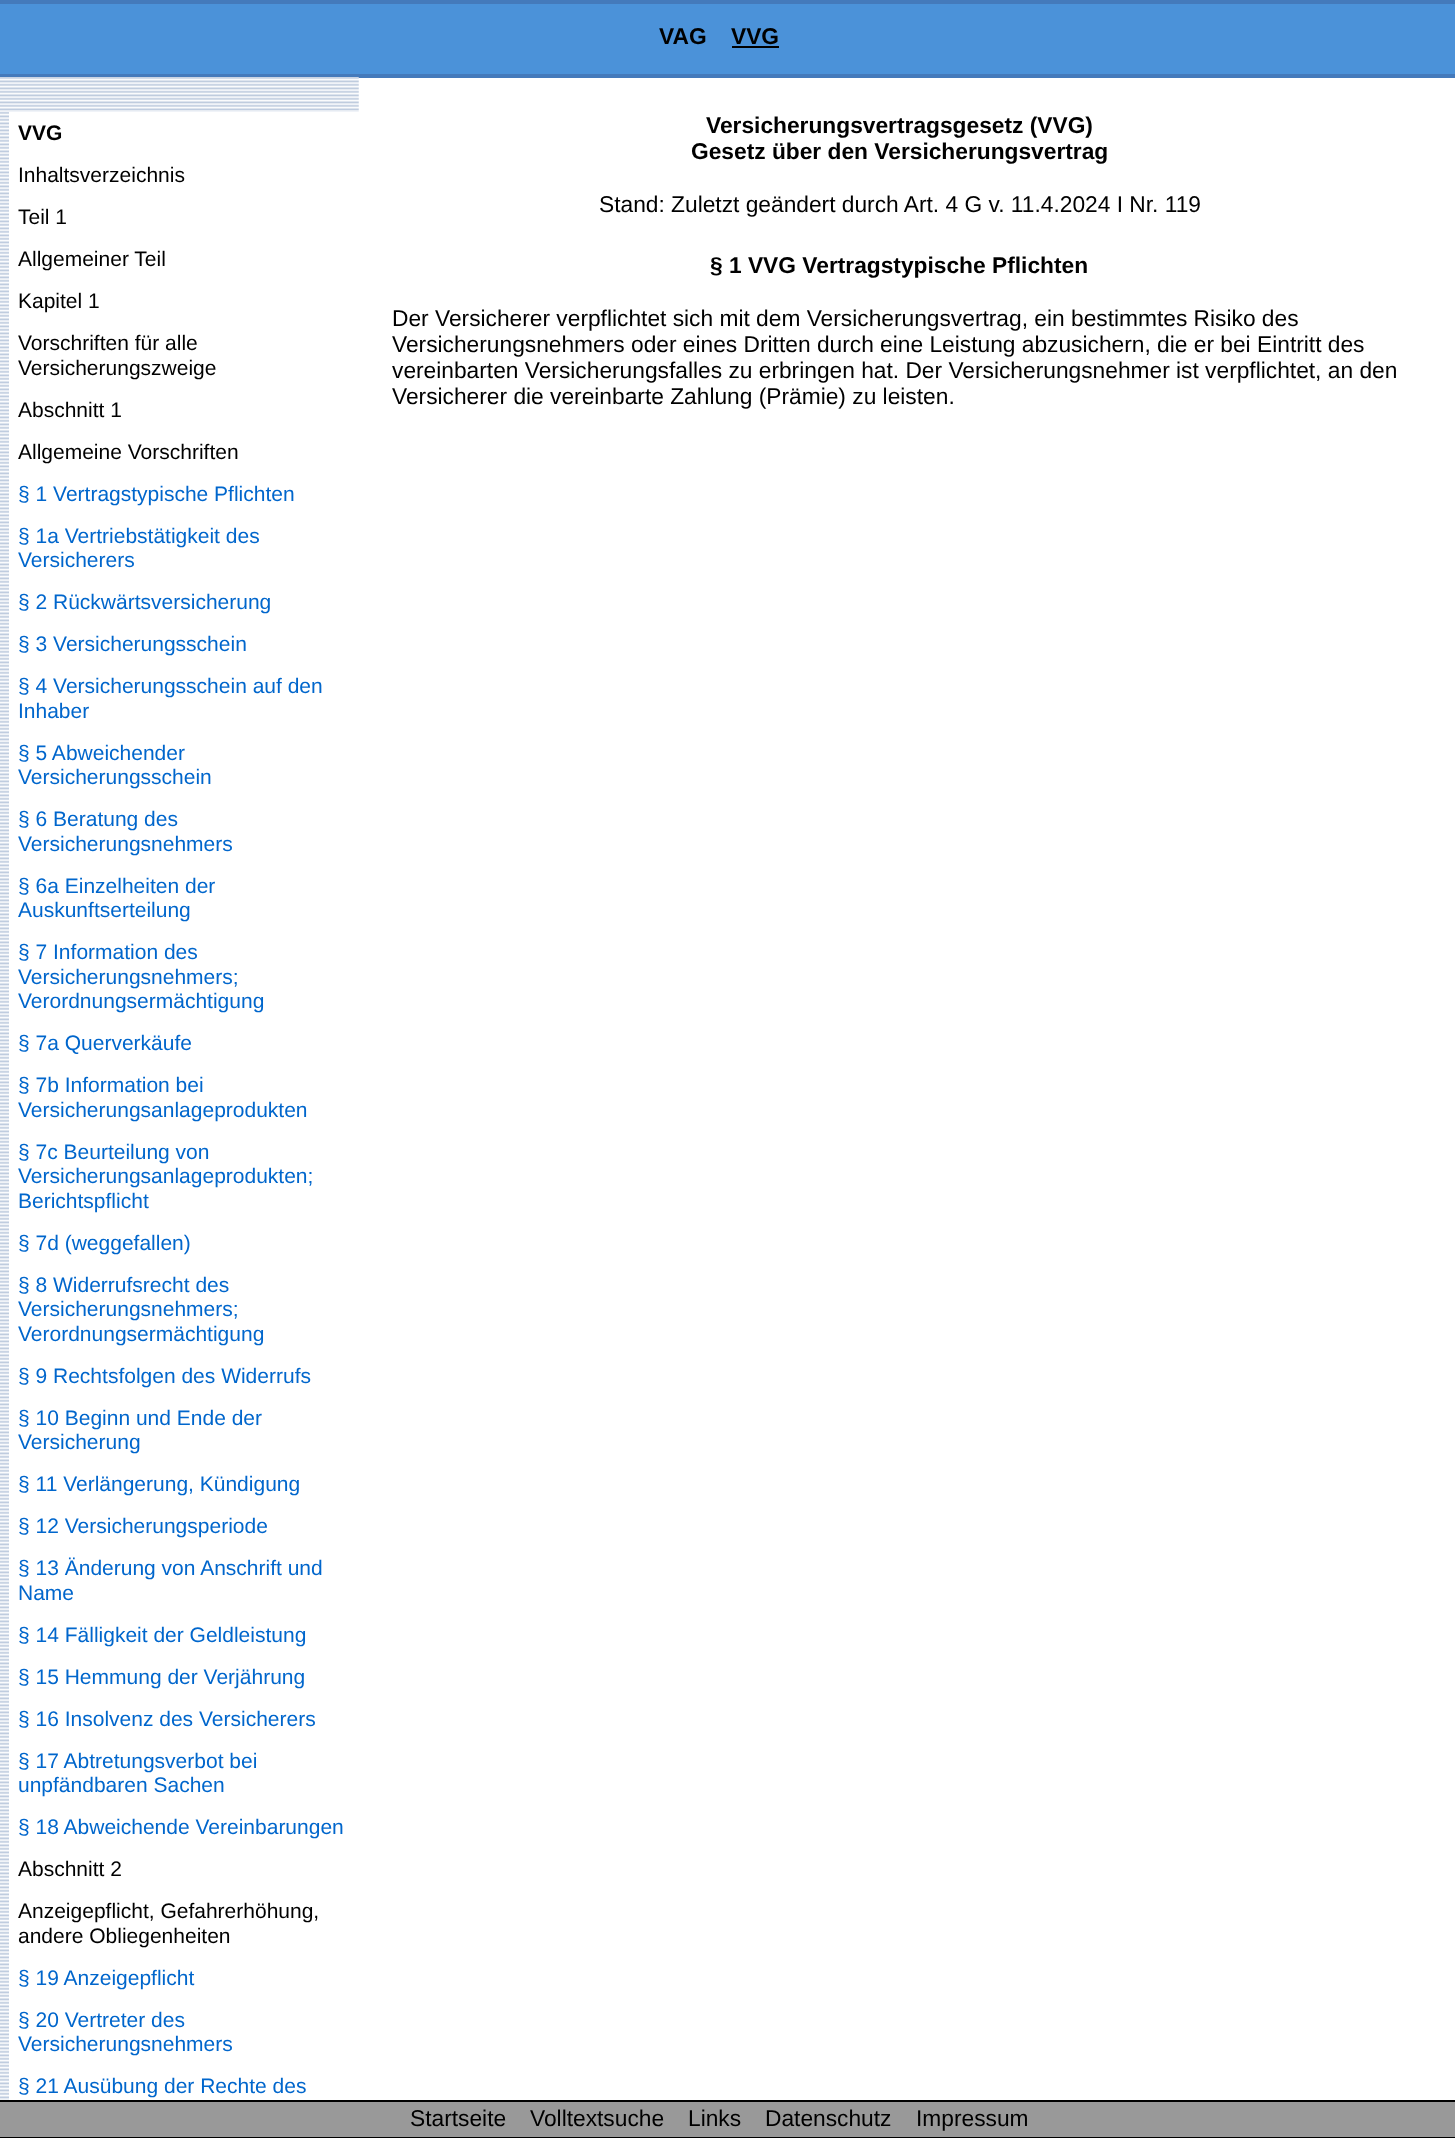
async function draw(canvas) {
  canvas.width = 1455;
  canvas.height = 2138;
  const ctx = canvas.getContext('2d');
  ctx.miterLimit = 4;
  ctx.fontKerning = 'normal';
  function label(s, x, y, font, color) {
    ctx.font = font;
    ctx.fillStyle = color;
    ctx.fillText(s, x, y);
  }
  function rect(x, y, w, h, color) {
    ctx.fillStyle = color;
    ctx.fillRect(x, y, w, h);
  }
  async function image(src, x, y, w, h) {
    const img = new Image();
    img.src = src;
    await img.decode();
    ctx.drawImage(img, x, y, w, h);
  }

  rect(0, 0, 1455, 2138, '#fff');
  rect(0, 4, 1455, 70, '#4b92d9');
  rect(0, 0, 1455, 4, '#447abb');
  rect(0, 74, 1455, 4, '#447abb');
  label('VAG', 659, 44, 'bold 22.75px Liberation Sans', '#000');
  label('VVG', 731, 44, 'bold 22.75px Liberation Sans', '#000');
  rect(732, 46, 47, 2, '#000');
  await image('assets/img1.png', 0, 77, 359, 2023);
  rect(9, 112, 350, 1988, '#fff');
  label('VVG', 18, 140, 'bold 21px Liberation Sans', '#000');
  label('Inhaltsverzeichnis', 18, 182, '21px Liberation Sans', '#000');
  label('Teil 1', 18, 224, '21px Liberation Sans', '#000');
  label('Allgemeiner Teil', 18, 266, '21px Liberation Sans', '#000');
  label('Kapitel 1', 18, 308, '21px Liberation Sans', '#000');
  label('Vorschriften für alle', 18, 350, '21px Liberation Sans', '#000');
  label('Versicherungszweige', 18, 375, '21px Liberation Sans', '#000');
  label('Abschnitt 1', 18, 417, '21px Liberation Sans', '#000');
  label('Allgemeine Vorschriften', 18, 459, '21px Liberation Sans', '#000');
  label('§ 1 Vertragstypische Pflichten', 18, 501, '21px Liberation Sans', '#06c');
  label('§ 1a Vertriebstätigkeit des', 18, 543, '21px Liberation Sans', '#06c');
  label('Versicherers', 18, 567, '21px Liberation Sans', '#06c');
  label('§ 2 Rückwärtsversicherung', 18, 609, '21px Liberation Sans', '#06c');
  label('§ 3 Versicherungsschein', 18, 651, '21px Liberation Sans', '#06c');
  label('§ 4 Versicherungsschein auf den', 18, 693, '21px Liberation Sans', '#06c');
  label('Inhaber', 18, 718, '21px Liberation Sans', '#06c');
  label('§ 5 Abweichender', 18, 760, '21px Liberation Sans', '#06c');
  label('Versicherungsschein', 18, 784, '21px Liberation Sans', '#06c');
  label('§ 6 Beratung des', 18, 826, '21px Liberation Sans', '#06c');
  label('Versicherungsnehmers', 18, 851, '21px Liberation Sans', '#06c');
  label('§ 6a Einzelheiten der', 18, 893, '21px Liberation Sans', '#06c');
  label('Auskunftserteilung', 18, 917, '21px Liberation Sans', '#06c');
  label('§ 7 Information des', 18, 959, '21px Liberation Sans', '#06c');
  label('Versicherungsnehmers;', 18, 984, '21px Liberation Sans', '#06c');
  label('Verordnungsermächtigung', 18, 1008, '21px Liberation Sans', '#06c');
  label('§ 7a Querverkäufe', 18, 1050, '21px Liberation Sans', '#06c');
  label('§ 7b Information bei', 18, 1092, '21px Liberation Sans', '#06c');
  label('Versicherungsanlageprodukten', 18, 1117, '21px Liberation Sans', '#06c');
  label('§ 7c Beurteilung von', 18, 1159, '21px Liberation Sans', '#06c');
  label('Versicherungsanlageprodukten;', 18, 1183, '21px Liberation Sans', '#06c');
  label('Berichtspflicht', 18, 1208, '21px Liberation Sans', '#06c');
  label('§ 7d (weggefallen)', 18, 1250, '21px Liberation Sans', '#06c');
  label('§ 8 Widerrufsrecht des', 18, 1292, '21px Liberation Sans', '#06c');
  label('Versicherungsnehmers;', 18, 1316, '21px Liberation Sans', '#06c');
  label('Verordnungsermächtigung', 18, 1341, '21px Liberation Sans', '#06c');
  label('§ 9 Rechtsfolgen des Widerrufs', 18, 1383, '21px Liberation Sans', '#06c');
  label('§ 10 Beginn und Ende der', 18, 1425, '21px Liberation Sans', '#06c');
  label('Versicherung', 18, 1449, '21px Liberation Sans', '#06c');
  label('§ 11 Verlängerung, Kündigung', 18, 1491, '21px Liberation Sans', '#06c');
  label('§ 12 Versicherungsperiode', 18, 1533, '21px Liberation Sans', '#06c');
  label('§ 13 Änderung von Anschrift und', 18, 1575, '21px Liberation Sans', '#06c');
  label('Name', 18, 1600, '21px Liberation Sans', '#06c');
  label('§ 14 Fälligkeit der Geldleistung', 18, 1642, '21px Liberation Sans', '#06c');
  label('§ 15 Hemmung der Verjährung', 18, 1684, '21px Liberation Sans', '#06c');
  label('§ 16 Insolvenz des Versicherers', 18, 1726, '21px Liberation Sans', '#06c');
  label('§ 17 Abtretungsverbot bei', 18, 1768, '21px Liberation Sans', '#06c');
  label('unpfändbaren Sachen', 18, 1792, '21px Liberation Sans', '#06c');
  label('§ 18 Abweichende Vereinbarungen', 18, 1834, '21px Liberation Sans', '#06c');
  label('Abschnitt 2', 18, 1876, '21px Liberation Sans', '#000');
  label('Anzeigepflicht, Gefahrerhöhung,', 18, 1918, '21px Liberation Sans', '#000');
  label('andere Obliegenheiten', 18, 1943, '21px Liberation Sans', '#000');
  label('§ 19 Anzeigepflicht', 18, 1985, '21px Liberation Sans', '#06c');
  label('§ 20 Vertreter des', 18, 2027, '21px Liberation Sans', '#06c');
  label('Versicherungsnehmers', 18, 2051, '21px Liberation Sans', '#06c');
  label('§ 21 Ausübung der Rechte des', 18, 2093, '21px Liberation Sans', '#06c');
  label('Versicherungsvertragsgesetz (VVG)', 706, 133, 'bold 22.75px Liberation Sans', '#000');
  label('Gesetz über den Versicherungsvertrag', 691, 159, 'bold 22.75px Liberation Sans', '#000');
  label('Stand: Zuletzt geändert durch Art. 4 G v. 11.4.2024 I Nr. 119', 599, 212, '22.75px Liberation Sans', '#000');
  label('§ 1 VVG Vertragstypische Pflichten', 710, 273, 'bold 22.75px Liberation Sans', '#000');
  label('Der Versicherer verpflichtet sich mit dem Versicherungsvertrag, ein bestimmtes Risiko des', 392, 326, '22.75px Liberation Sans', '#000');
  label('Versicherungsnehmers oder eines Dritten durch eine Leistung abzusichern, die er bei Eintritt des', 392, 352, '22.75px Liberation Sans', '#000');
  label('vereinbarten Versicherungsfalles zu erbringen hat. Der Versicherungsnehmer ist verpflichtet, an den', 392, 378, '22.75px Liberation Sans', '#000');
  label('Versicherer die vereinbarte Zahlung (Prämie) zu leisten.', 392, 404, '22.75px Liberation Sans', '#000');
  rect(0, 2102, 1455, 35, '#999');
  rect(0, 2100, 1455, 2, '#000');
  rect(0, 2137, 1455, 1, '#000');
  label('Startseite', 410, 2126, '22.75px Liberation Sans', '#000');
  label('Volltextsuche', 530, 2126, '22.75px Liberation Sans', '#000');
  label('Links', 688, 2126, '22.75px Liberation Sans', '#000');
  label('Datenschutz', 765, 2126, '22.75px Liberation Sans', '#000');
  label('Impressum', 916, 2126, '22.75px Liberation Sans', '#000');
}

draw(document.querySelector('canvas'));
